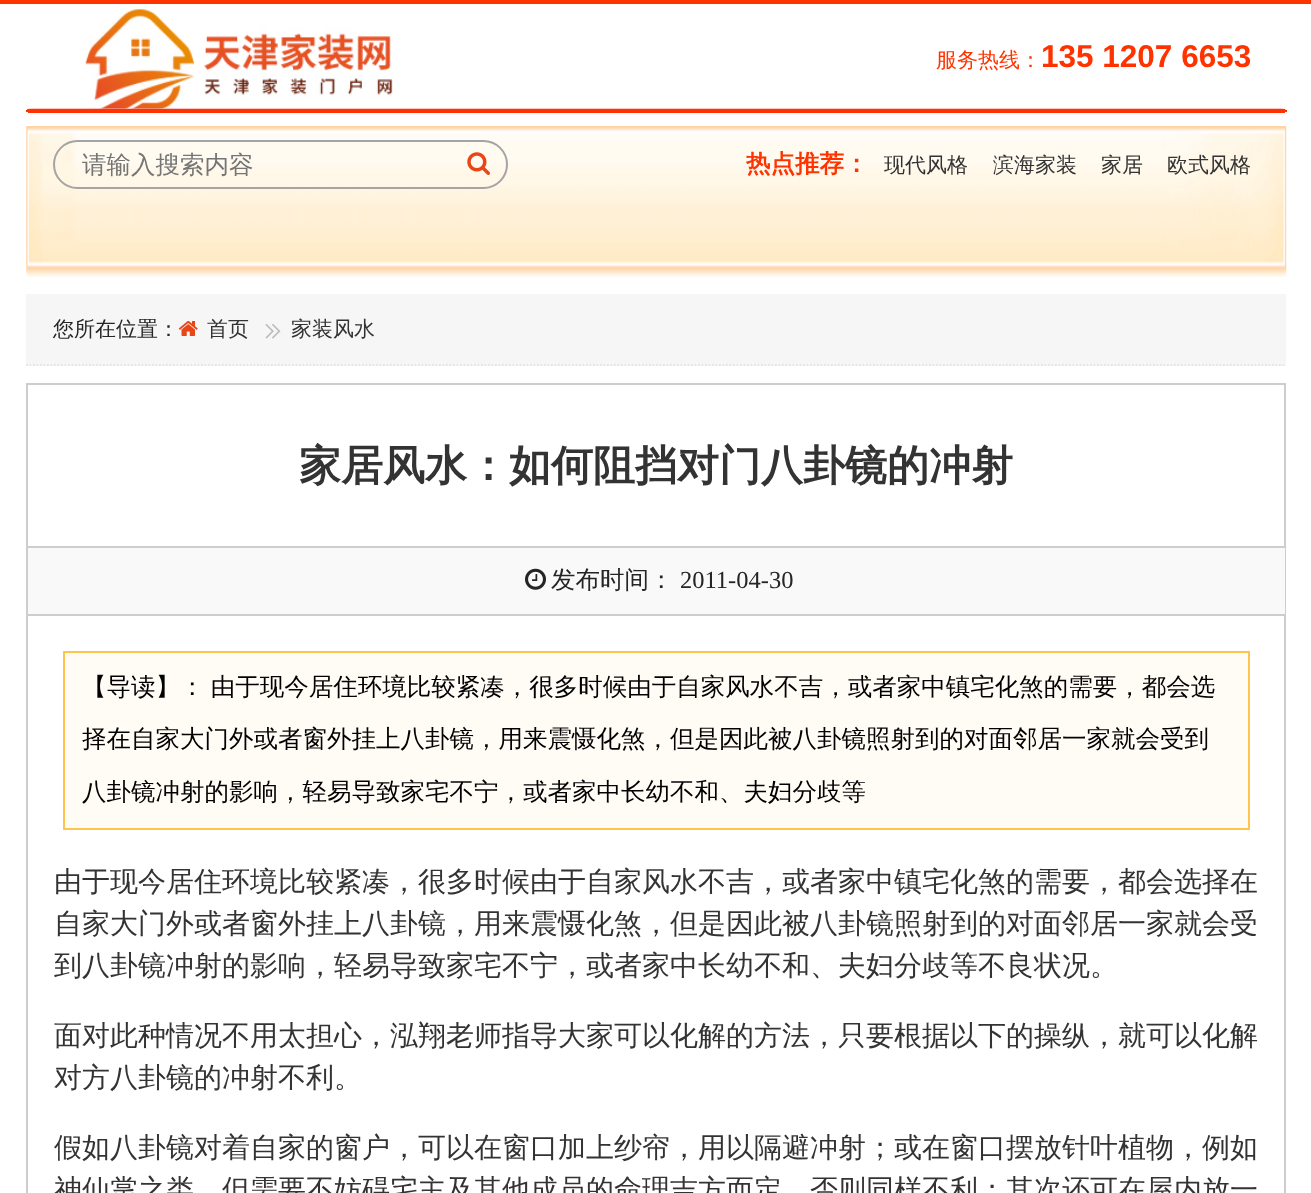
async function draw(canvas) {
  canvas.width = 1311;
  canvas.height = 1193;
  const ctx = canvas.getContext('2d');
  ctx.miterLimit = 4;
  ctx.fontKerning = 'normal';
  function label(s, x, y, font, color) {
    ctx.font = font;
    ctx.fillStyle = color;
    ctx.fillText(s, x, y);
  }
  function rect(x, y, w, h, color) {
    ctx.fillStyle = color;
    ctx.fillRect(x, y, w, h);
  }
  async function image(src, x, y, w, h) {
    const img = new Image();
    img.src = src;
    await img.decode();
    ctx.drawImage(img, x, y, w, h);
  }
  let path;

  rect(0, 0, 1311, 1193, '#fff');
  rect(0, 0, 1311, 4, '#f30');
  await image('assets/img1.png', 85, 9, 308, 100);
  label('服务热线：', 936, 67, '500 21px WenQuanYi Zen Hei', '#f30');
  label('135 1207 6653', 1041, 67, 'bold 31.5px Liberation Sans', '#f30');
  await image('assets/img2.png', 27, 108, 1259, 2);
  rect(28, 109, 1257, 4, '#f30');
  rect(1283, 110, 4, 2, '#f30');
  rect(26, 110, 4, 2, '#f30');
  await image('assets/img3.png', 26, 126, 1261, 151);
  ctx.beginPath();
  ctx.roundRect(54, 141, 453, 47, 23.5);
  ctx.strokeStyle = '#a4a4a4';
  ctx.lineWidth = 2;
  ctx.stroke();
  label('请输入搜索内容', 82, 173, '500 24.5px WenQuanYi Zen Hei', '#757575');
  await image('assets/img4.png', 467, 152, 23, 23);
  label('热点推荐：', 746, 172, 'bold 24.5px WenQuanYi Zen Hei', '#f30');
  label('现代风格', 884, 172, '500 21px WenQuanYi Zen Hei', '#333');
  label('滨海家装', 993, 172, '500 21px WenQuanYi Zen Hei', '#333');
  label('家居', 1101, 172, '500 21px WenQuanYi Zen Hei', '#333');
  label('欧式风格', 1167, 172, '500 21px WenQuanYi Zen Hei', '#333');
  rect(26, 294, 1260, 72, '#f6f6f6');
  path = new Path2D('M26 365H1286');
  ctx.strokeStyle = '#e5e5e5';
  ctx.lineWidth = 1.8;
  ctx.setLineDash([1.75, 1.75]);
  ctx.stroke(path);
  label('您所在位置：', 53, 336, '500 21px WenQuanYi Zen Hei', '#252525');
  await image('assets/img5.png', 178, 321, 20, 15);
  label('首页', 207, 336, '500 21px WenQuanYi Zen Hei', '#333');
  await image('assets/img6.png', 265, 324, 16, 15);
  label('家装风水', 291, 336, '500 21px WenQuanYi Zen Hei', '#333');
  ctx.strokeStyle = '#cdcdcd';
  ctx.lineWidth = 2;
  ctx.setLineDash([]);
  ctx.strokeRect(27, 384, 1258, 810);
  label('家居风水：如何阻挡对门八卦镜的冲射', 299, 480, 'bold 42px WenQuanYi Zen Hei', '#333');
  rect(28, 548, 1257, 66, '#f9f9f9');
  rect(28, 546, 1257, 2, '#cdcdcd');
  rect(28, 614, 1257, 2, '#cdcdcd');
  await image('assets/img7.png', 525, 568, 21, 22);
  label('发布时间：', 551, 588, '500 24.5px WenQuanYi Zen Hei', '#252525');
  label('2011-04-30', 680, 588, '24.5px Liberation Serif', '#252525');
  ctx.fillStyle = '#fffcf6';
  ctx.beginPath();
  ctx.rect(64, 652, 1185, 177);
  ctx.fill();
  ctx.strokeStyle = '#ffc44c';
  ctx.stroke();
  ctx.wordSpacing = '-1px';
  label('【导读】： 由于现今居住环境比较紧凑，很多时候由于自家风水不吉，或者家中镇宅化煞的需要，都会选', 82, 695, '500 24.5px WenQuanYi Zen Hei', '#000');
  ctx.wordSpacing = '0px';
  label('择在自家大门外或者窗外挂上八卦镜，用来震慑化煞，但是因此被八卦镜照射到的对面邻居一家就会受到', 82, 747, '500 24.5px WenQuanYi Zen Hei', '#000');
  label('八卦镜冲射的影响，轻易导致家宅不宁，或者家中长幼不和、夫妇分歧等', 82, 800, '500 24.5px WenQuanYi Zen Hei', '#000');
  label('由于现今居住环境比较紧凑，很多时候由于自家风水不吉，或者家中镇宅化煞的需要，都会选择在', 54, 891, '500 28px WenQuanYi Zen Hei', '#333');
  label('自家大门外或者窗外挂上八卦镜，用来震慑化煞，但是因此被八卦镜照射到的对面邻居一家就会受', 54, 933, '500 28px WenQuanYi Zen Hei', '#333');
  label('到八卦镜冲射的影响，轻易导致家宅不宁，或者家中长幼不和、夫妇分歧等不良状况。', 54, 975, '500 28px WenQuanYi Zen Hei', '#333');
  label('面对此种情况不用太担心，泓翔老师指导大家可以化解的方法，只要根据以下的操纵，就可以化解', 54, 1045, '500 28px WenQuanYi Zen Hei', '#333');
  label('对方八卦镜的冲射不利。', 54, 1087, '500 28px WenQuanYi Zen Hei', '#333');
  label('假如八卦镜对着自家的窗户，可以在窗口加上纱帘，用以隔避冲射；或在窗口摆放针叶植物，例如', 54, 1157, '500 28px WenQuanYi Zen Hei', '#333');
  label('神仙掌之类，但需要不妨碍宅主及其他成员的命理吉方而定，否则同样不利；其次还可在屋内放一', 54, 1199, '500 28px WenQuanYi Zen Hei', '#333');
}

draw(document.querySelector('canvas'));
